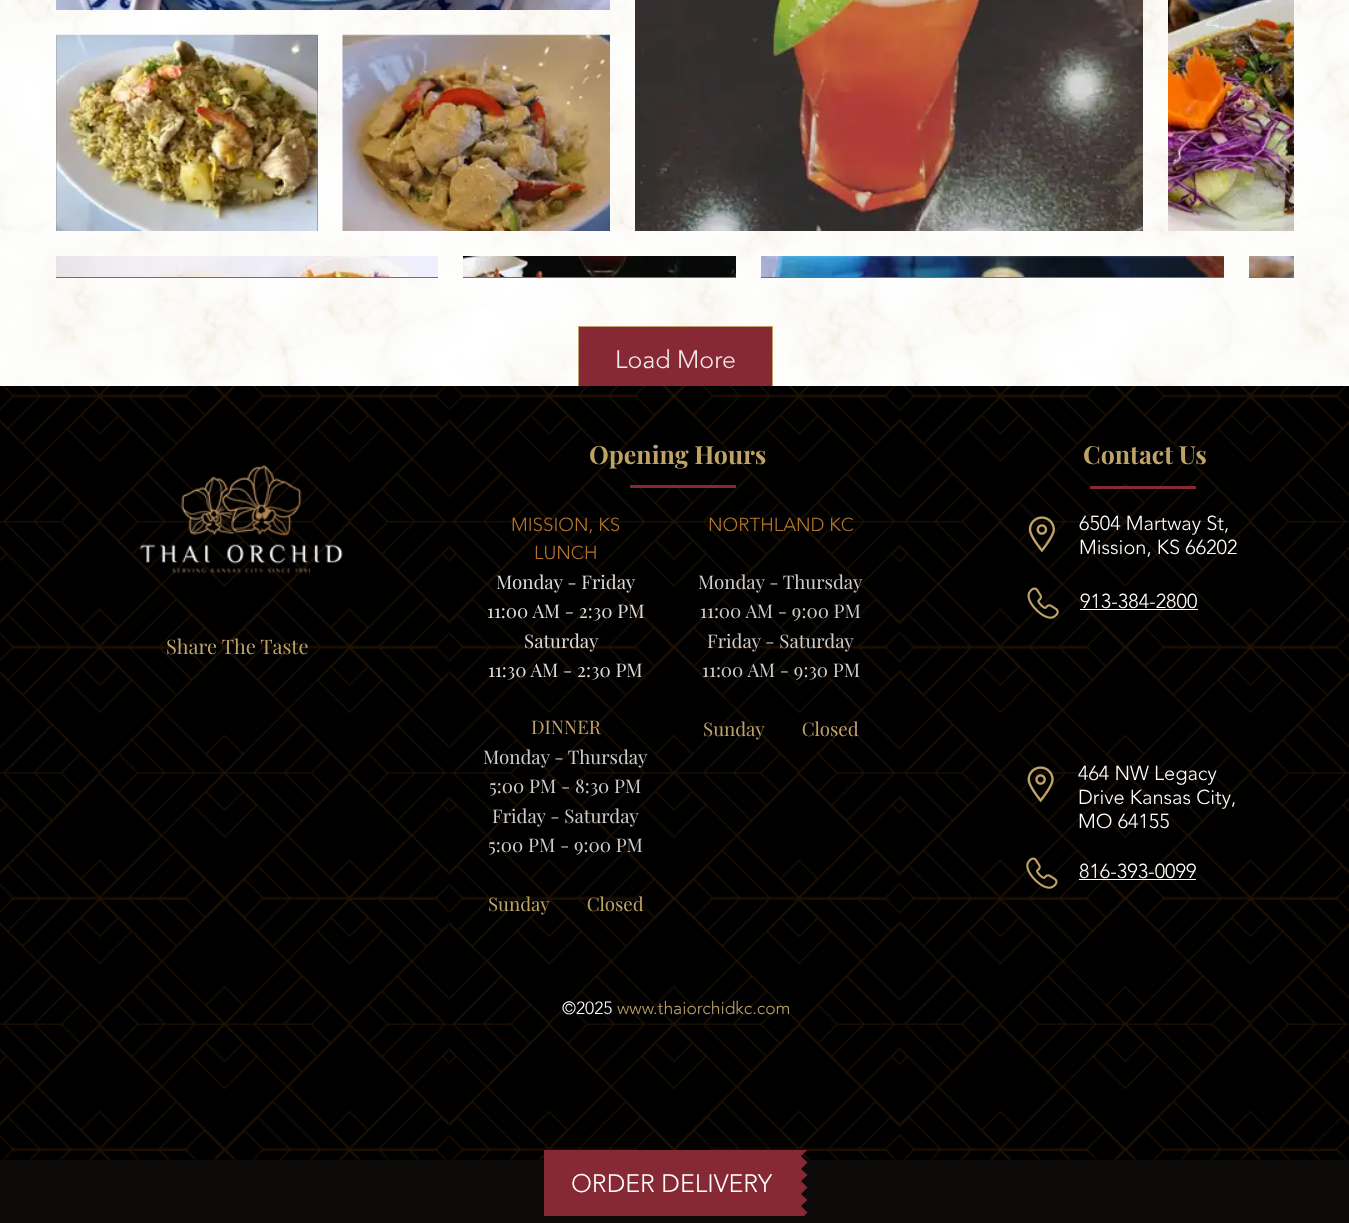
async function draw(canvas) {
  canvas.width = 1349;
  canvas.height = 1223;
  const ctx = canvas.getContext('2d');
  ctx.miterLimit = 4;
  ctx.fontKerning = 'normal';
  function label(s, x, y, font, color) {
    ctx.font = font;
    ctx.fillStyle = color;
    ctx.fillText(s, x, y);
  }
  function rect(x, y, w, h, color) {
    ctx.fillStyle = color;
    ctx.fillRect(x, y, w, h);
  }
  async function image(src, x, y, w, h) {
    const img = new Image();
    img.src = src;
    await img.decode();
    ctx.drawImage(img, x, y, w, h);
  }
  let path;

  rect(0, 0, 1349, 1223, '#fff');
  await image('assets/img1.png', 0, 0, 1349, 386);
  await image('assets/img2.png', 56, 0, 554, 10);
  await image('assets/img3.png', 635, 0, 508, 231);
  await image('assets/img4.png', 1168, 0, 126, 231);
  rect(56, 35, 262, 196, '#756f63');
  await image('assets/img5.png', 56, 34, 262, 197);
  await image('assets/img6.png', 342, 34, 268, 197);
  rect(56, 277, 382, 1, '#756f63');
  await image('assets/img7.png', 56, 256, 382, 21);
  rect(463, 277, 273, 1, '#756f63');
  await image('assets/img8.png', 463, 256, 273, 21);
  rect(761, 277, 463, 1, '#756f63');
  await image('assets/img9.png', 761, 256, 463, 21);
  rect(1249, 277, 45, 1, '#756f63');
  await image('assets/img10.png', 1249, 256, 45, 21);
  rect(579, 327, 193, 59, '#872835');
  ctx.strokeStyle = '#bfa268';
  ctx.strokeRect(578.5, 326.5, 194, 64);
  label('Load More', 615, 368, '300 25px "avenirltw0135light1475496"', '#f3eaeb');
  rect(0, 386, 1349, 774, '#000');
  await image('assets/img11.png', 0, 386, 449, 774);
  await image('assets/img12.png', 139, 464, 204, 110);
  label('Share The Taste', 166, 654, '20px Playfair Display', '#bfa268');
  await image('assets/img13.png', 449, 386, 451, 774);
  label('Opening Hours', 589, 464, 'bold 25px Playfair Display', '#bfa268');
  rect(630, 485, 106, 3, '#872835');
  label('MISSION, KS', 511, 531, '300 18.75px "avenirltw0135light1475496"', '#b4762c');
  label('LUNCH', 534, 559, '300 18.75px "avenirltw0135light1475496"', '#b4762c');
  label('Monday - Friday', 496, 589, '18.75px Playfair Display', '#dbdbdb');
  label('11:00 AM - 2:30 PM', 487, 618, '18.75px Playfair Display', '#dbdbdb');
  label('Saturday', 524, 648, '18.75px Playfair Display', '#dbdbdb');
  label('11:30 AM - 2:30 PM', 488, 677, '18.75px Playfair Display', '#dbdbdb');
  label('DINNER', 531, 734, '18.75px Playfair Display', '#bfa268');
  label('Monday - Thursday', 483, 764, '18.75px Playfair Display', '#ccc');
  label('5:00 PM - 8:30 PM', 489, 793, '18.75px Playfair Display', '#ccc');
  label('Friday - Saturday', 492, 823, '18.75px Playfair Display', '#ccc');
  label('5:00 PM - 9:00 PM', 488, 852, '18.75px Playfair Display', '#ccc');
  label('Sunday        Closed', 488, 911, '18.75px Playfair Display', '#bfa268');
  label('NORTHLAND KC', 708, 531, '300 18.75px "avenirltw0135light1475496"', '#b4762c');
  label('Monday - Thursday', 698, 589, '18.75px Playfair Display', '#ccc');
  label('11:00 AM - 9:00 PM', 700, 618, '18.75px Playfair Display', '#ccc');
  label('Friday - Saturday', 707, 648, '18.75px Playfair Display', '#ccc');
  label('11:00 AM - 9:30 PM', 702, 677, '18.75px Playfair Display', '#ccc');
  label('Sunday        Closed', 703, 736, '18.75px Playfair Display', '#bfa268');
  label('©2025', 562, 1014, '300 17.5px "avenirltw0135light1475496"', '#fff');
  label('www.thaiorchidkc.com', 617, 1014, '300 17.5px "avenirltw0135light1475496"', '#bfa268');
  await image('assets/img14.png', 900, 386, 449, 774);
  label('Contact Us', 1083, 464, 'bold 25px Playfair Display', '#bfa268');
  rect(1090, 486, 106, 3, '#872835');
  await image('assets/img15.png', 1028, 516, 27, 37);
  label('6504 Martway St,', 1079, 530, '300 20px "avenirltw0135light1475496"', '#fff');
  label('Mission, KS 66202', 1079, 554, '300 20px "avenirltw0135light1475496"', '#fff');
  await image('assets/img16.png', 1027, 587, 32, 32);
  label('913-384-2800', 1080, 608, '300 20px "avenirltw0135light1475496"', '#fff');
  rect(1080, 609, 118, 1, '#fff');
  await image('assets/img17.png', 1027, 766, 27, 37);
  label('464 NW Legacy', 1078, 780, '300 20px "avenirltw0135light1475496"', '#fff');
  label('Drive Kansas City,', 1078, 804, '300 20px "avenirltw0135light1475496"', '#fff');
  label('MO 64155', 1078, 828, '300 20px "avenirltw0135light1475496"', '#fff');
  await image('assets/img18.png', 1026, 857, 32, 32);
  label('816-393-0099', 1079, 878, '300 20px "avenirltw0135light1475496"', '#fff');
  rect(1079, 879, 117, 1, '#fff');
  rect(0, 1160, 1349, 63, '#0d0b0a');
  rect(544, 1150, 257, 66, '#872835');
  label('ORDER DELIVERY', 571, 1192, '300 25px "avenirltw0135light1475496"', '#fff');
  ctx.save();
  ctx.beginPath();
  ctx.rect(801, 1150, 7, 66);
  ctx.clip();
  ctx.fillStyle = '#872835';
  path = new Path2D('M801 1156V1144L807.5 1150Z');
  ctx.fill(path);
  ctx.restore();
  ctx.fillStyle = '#872835';
  path = new Path2D('M801 1169V1156L807.5 1162.5ZM801 1181V1169L807.5 1175ZM801 1194V1181L807.5 1187.5ZM801 1206V1194L807.5 1200Z');
  ctx.fill(path);
  ctx.save();
  ctx.beginPath();
  ctx.rect(801, 1150, 7, 66);
  ctx.clip();
  path = new Path2D('M801 1219V1206L807.5 1212.5Z');
  ctx.fill(path);
  ctx.restore();
}

draw(document.querySelector('canvas'));
